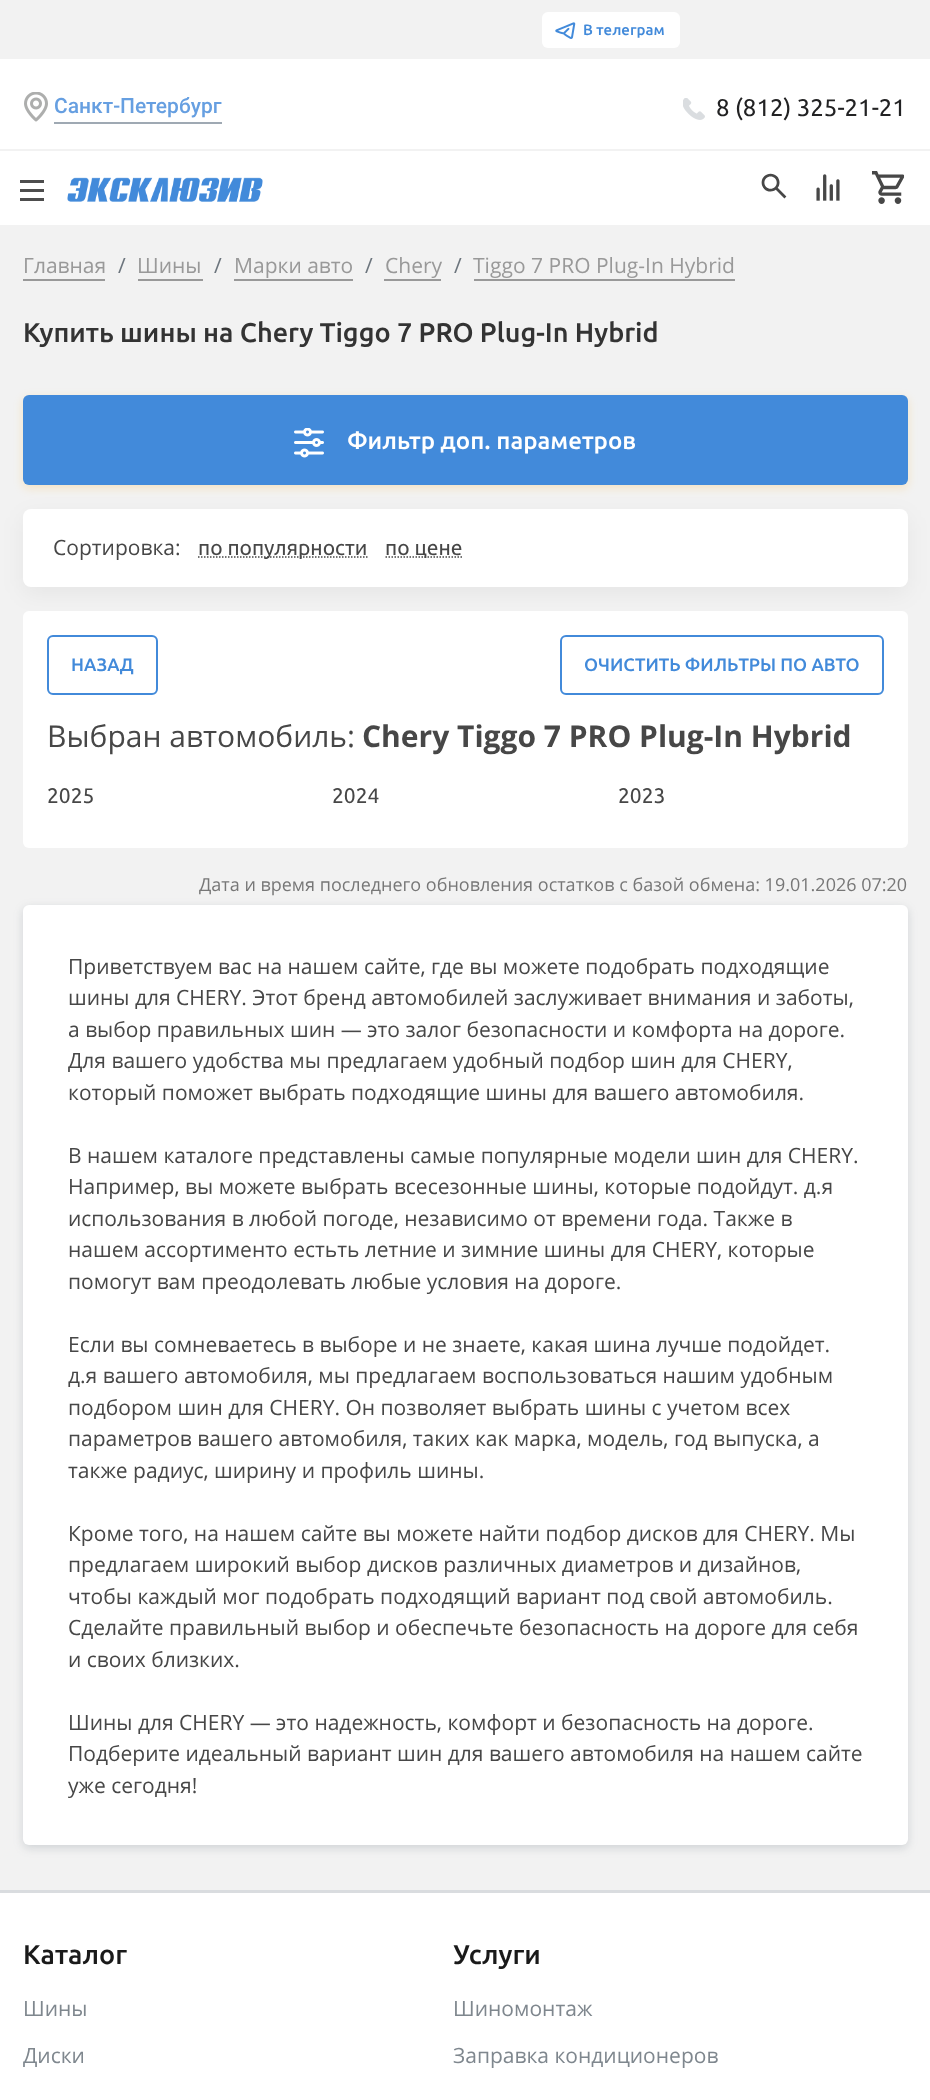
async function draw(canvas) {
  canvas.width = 930;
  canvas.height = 2100;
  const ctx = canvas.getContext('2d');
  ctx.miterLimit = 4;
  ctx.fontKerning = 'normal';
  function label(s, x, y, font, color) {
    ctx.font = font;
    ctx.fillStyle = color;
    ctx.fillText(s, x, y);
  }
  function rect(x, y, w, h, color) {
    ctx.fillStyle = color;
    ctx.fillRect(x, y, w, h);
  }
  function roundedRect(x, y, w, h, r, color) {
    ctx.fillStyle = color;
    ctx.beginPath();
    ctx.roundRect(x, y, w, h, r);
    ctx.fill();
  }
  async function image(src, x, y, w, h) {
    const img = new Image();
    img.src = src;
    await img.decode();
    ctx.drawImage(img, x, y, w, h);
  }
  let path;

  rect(0, 0, 930, 2100, '#f2f2f2');
  roundedRect(542, 12, 138, 36, 6, '#fff');
  await image('assets/img1.png', 555, 22, 21, 17);
  label('В телеграм', 583, 35, '500 15px Ubuntu', '#428ada');
  rect(0, 59, 930, 90, '#fff');
  await image('assets/img2.png', 24, 92, 24, 30);
  rect(54, 122, 168, 2, '#9fa9b3');
  label('Санкт-Петербург', 54, 113, '500 21px Roboto', '#669fe1');
  await image('assets/img3.png', 683, 98, 22, 22);
  label('8 (812) 325-21-21', 716, 116, '24px Ubuntu', '#222223');
  rect(0, 151, 930, 74, '#fff');
  rect(20, 180, 24, 3, '#4d4d4d');
  rect(20, 189, 24, 3, '#4d4d4d');
  rect(20, 198, 24, 3, '#4d4d4d');
  await image('assets/img4.png', 67, 177, 196, 25);
  await image('assets/img5.png', 761, 173, 26, 26);
  await image('assets/img6.png', 816, 174, 24, 27);
  await image('assets/img7.png', 872, 171, 33, 33);
  label('Главная', 23, 273, '21px Open Sans', '#999');
  rect(23, 279, 82, 2, '#999');
  label('/', 118, 273, '21px Open Sans', '#6c757d');
  label('Шины', 137, 273, '21px Open Sans', '#999');
  rect(138, 279, 65, 2, '#999');
  label('/', 214, 273, '21px Open Sans', '#6c757d');
  label('Марки авто', 234, 273, '21px Open Sans', '#999');
  rect(234, 279, 119, 2, '#999');
  label('/', 365, 273, '21px Open Sans', '#6c757d');
  label('Chery', 385, 273, '21px Open Sans', '#999');
  rect(384, 279, 57, 2, '#999');
  label('/', 454, 273, '21px Open Sans', '#6c757d');
  label('Tiggo 7 PRO Plug-In Hybrid', 473, 273, '21px Open Sans', '#999');
  rect(474, 279, 261, 2, '#999');
  label('Купить шины на Chery Tiggo 7 PRO Plug-In Hybrid', 23, 342, '500 27px Ubuntu', '#333');
  ctx.fillStyle = '#ffac0a33';
  ctx.filter = 'blur(5px)';
  ctx.beginPath();
  ctx.roundRect(23, 398, 885, 90, 6);
  ctx.fill();
  ctx.filter = 'none';
  roundedRect(23, 395, 885, 90, 6, '#428ada');
  await image('assets/img8.png', 294, 428, 30, 30);
  label('Фильтр доп. параметров', 347, 449, '500 24px Ubuntu', '#fff');
  ctx.fillStyle = '#0000000d';
  ctx.filter = 'blur(11px)';
  ctx.beginPath();
  ctx.roundRect(23, 516, 885, 78, 8);
  ctx.fill();
  ctx.filter = 'none';
  roundedRect(23, 509, 885, 78, 8, '#fff');
  label('Сортировка:', 53, 555, '21px Open Sans', '#474747');
  path = new Path2D('M198 557H367.5');
  ctx.strokeStyle = '#474747';
  ctx.lineWidth = 1.5;
  ctx.setLineDash([1.5, 1.5]);
  ctx.stroke(path);
  label('по популярности', 198, 555, '21px Ubuntu', '#474747');
  path = new Path2D('M385.5 557H463');
  ctx.stroke(path);
  label('по цене', 385, 555, '21px Ubuntu', '#474747');
  roundedRect(23, 611, 885, 237, 6, '#fff');
  ctx.beginPath();
  ctx.roundRect(48, 636, 109, 58, 5);
  ctx.strokeStyle = '#428ada';
  ctx.lineWidth = 2;
  ctx.setLineDash([]);
  ctx.stroke();
  label('НАЗАД', 71, 671, '500 18px Ubuntu', '#428ada');
  ctx.beginPath();
  ctx.roundRect(561, 636, 322, 58, 5);
  ctx.stroke();
  label('ОЧИСТИТЬ ФИЛЬТРЫ ПО АВТО', 584, 671, '500 18px Ubuntu', '#428ada');
  label('Выбран автомобиль:', 47, 747, '30px Open Sans', '#474747');
  label('Chery Tiggo 7 PRO Plug-In Hybrid', 362, 747, 'bold 30px Open Sans', '#474747');
  label('2025', 47, 803, '21px Ubuntu', '#474747');
  label('2024', 332, 803, '21px Ubuntu', '#474747');
  label('2023', 618, 803, '21px Ubuntu', '#474747');
  label('Дата и время последнего обновления остатков с базой обмена: 19.01.2026 07:20', 199, 891, '18px Open Sans', '#777');
  ctx.fillStyle = '#495b6a33';
  ctx.filter = 'blur(5px)';
  ctx.beginPath();
  ctx.roundRect(23, 908, 885, 940, 6);
  ctx.fill();
  ctx.filter = 'none';
  roundedRect(23, 905, 885, 940, 6, '#fff');
  label('Приветствуем вас на нашем сайте, где вы можете подобрать подходящие', 68, 974, '21px Open Sans', '#474747');
  label('шины для CHERY. Этот бренд автомобилей заслуживает внимания и заботы,', 68, 1005, '21px Open Sans', '#474747');
  label('а выбор правильных шин — это залог безопасности и комфорта на дороге.', 68, 1037, '21px Open Sans', '#474747');
  label('Для вашего удобства мы предлагаем удобный подбор шин для CHERY,', 68, 1068, '21px Open Sans', '#474747');
  label('который поможет выбрать подходящие шины для вашего автомобиля.', 68, 1100, '21px Open Sans', '#474747');
  label('В нашем каталоге представлены самые популярные модели шин для CHERY.', 68, 1163, '21px Open Sans', '#474747');
  label('Например, вы можете выбрать всесезонные шины, которые подойдут. д.я', 68, 1194, '21px Open Sans', '#474747');
  label('использования в любой погоде, независимо от времени года. Также в', 68, 1226, '21px Open Sans', '#474747');
  label('нашем ассортименто естьть летние и зимние шины для CHERY, которые', 68, 1257, '21px Open Sans', '#474747');
  label('помогут вам преодолевать любые условия на дороге.', 68, 1289, '21px Open Sans', '#474747');
  label('Если вы сомневаетесь в выборе и не знаете, какая шина лучше подойдет.', 68, 1352, '21px Open Sans', '#474747');
  label('д.я вашего автомобиля, мы предлагаем воспользоваться нашим удобным', 68, 1383, '21px Open Sans', '#474747');
  label('подбором шин для CHERY. Он позволяет выбрать шины с учетом всех', 68, 1415, '21px Open Sans', '#474747');
  label('параметров вашего автомобиля, таких как марка, модель, год выпуска, а', 68, 1446, '21px Open Sans', '#474747');
  label('также радиус, ширину и профиль шины.', 68, 1478, '21px Open Sans', '#474747');
  label('Кроме того, на нашем сайте вы можете найти подбор дисков для CHERY. Мы', 68, 1541, '21px Open Sans', '#474747');
  label('предлагаем широкий выбор дисков различных диаметров и дизайнов,', 68, 1572, '21px Open Sans', '#474747');
  label('чтобы каждый мог подобрать подходящий вариант под свой автомобиль.', 68, 1604, '21px Open Sans', '#474747');
  label('Сделайте правильный выбор и обеспечьте безопасность на дороге для себя', 68, 1635, '21px Open Sans', '#474747');
  label('и своих близких.', 68, 1667, '21px Open Sans', '#474747');
  label('Шины для CHERY — это надежность, комфорт и безопасность на дороге.', 68, 1730, '21px Open Sans', '#474747');
  label('Подберите идеальный вариант шин для вашего автомобиля на нашем сайте', 68, 1761, '21px Open Sans', '#474747');
  label('уже сегодня!', 68, 1793, '21px Open Sans', '#474747');
  rect(0, 1893, 930, 207, '#fff');
  rect(0, 1890, 930, 3, '#d9dcdf');
  label('Каталог', 23, 1964, '500 27px Ubuntu', '#1a1a1a');
  label('Шины', 23, 2016, '21px Open Sans', '#7f878e');
  label('Диски', 23, 2063, '21px Open Sans', '#7f878e');
  label('Услуги', 453, 1964, '500 27px Ubuntu', '#1a1a1a');
  label('Шиномонтаж', 453, 2016, '21px Open Sans', '#7f878e');
  label('Заправка кондиционеров', 453, 2063, '21px Open Sans', '#7f878e');
}

draw(document.querySelector('canvas'));
